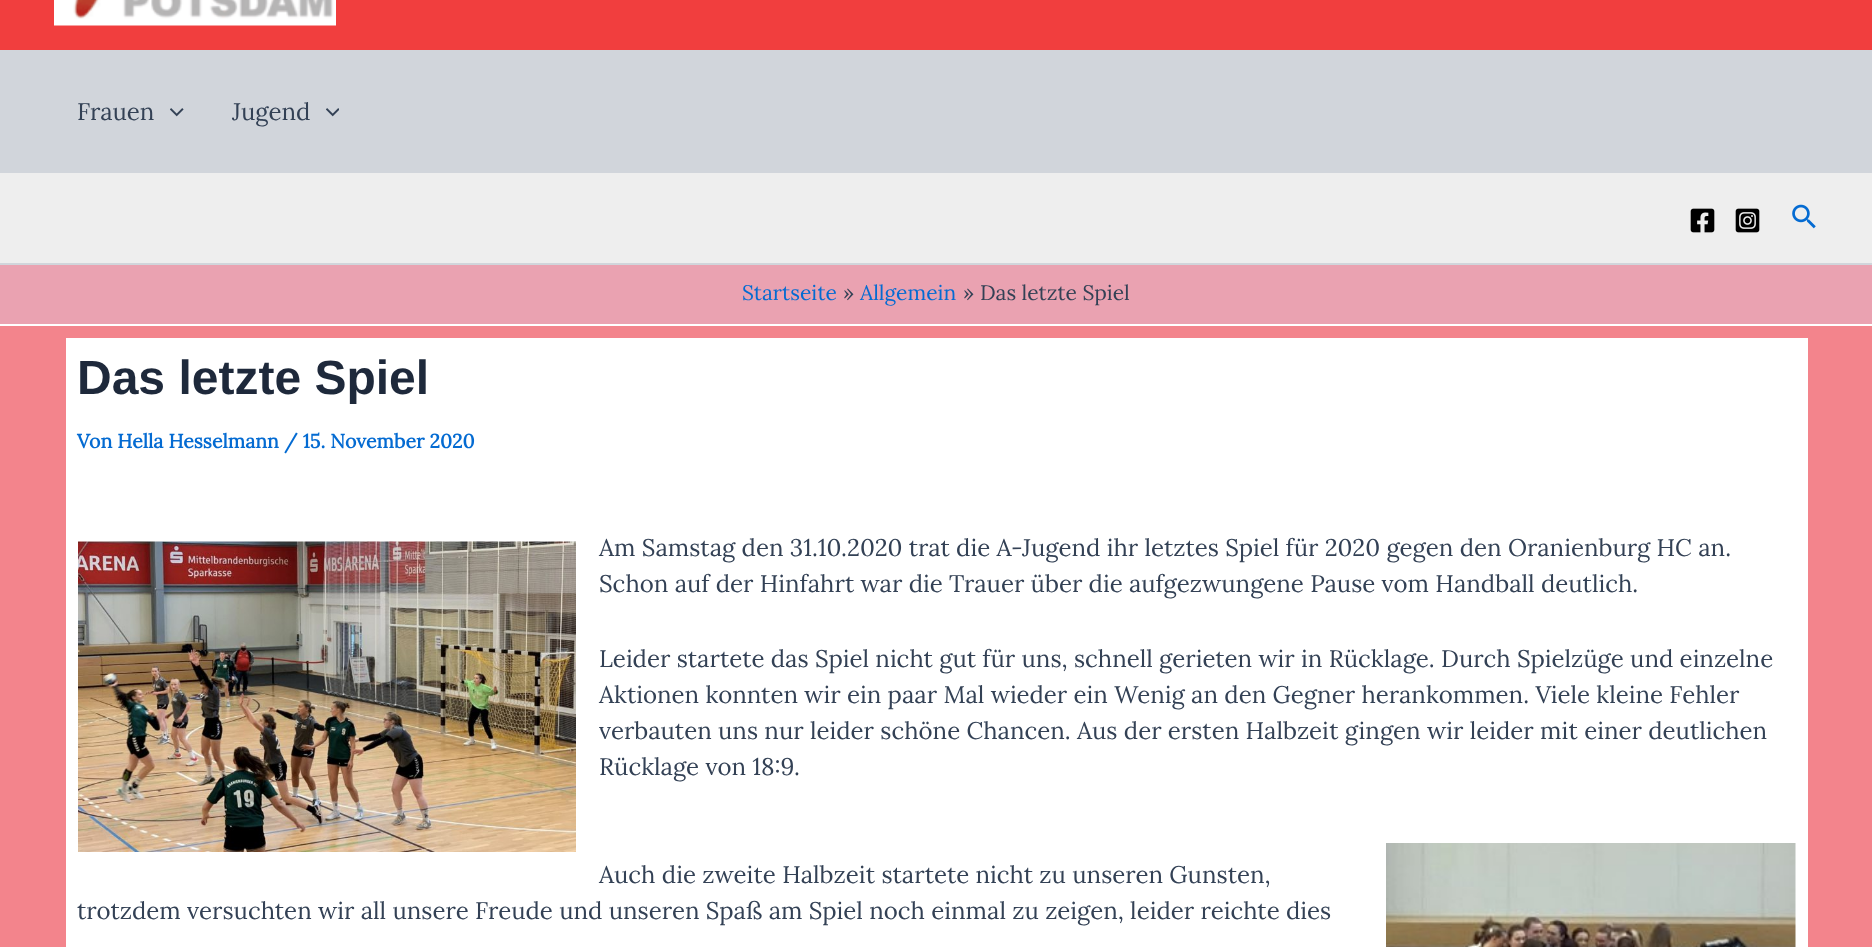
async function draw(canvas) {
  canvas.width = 1872;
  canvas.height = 947;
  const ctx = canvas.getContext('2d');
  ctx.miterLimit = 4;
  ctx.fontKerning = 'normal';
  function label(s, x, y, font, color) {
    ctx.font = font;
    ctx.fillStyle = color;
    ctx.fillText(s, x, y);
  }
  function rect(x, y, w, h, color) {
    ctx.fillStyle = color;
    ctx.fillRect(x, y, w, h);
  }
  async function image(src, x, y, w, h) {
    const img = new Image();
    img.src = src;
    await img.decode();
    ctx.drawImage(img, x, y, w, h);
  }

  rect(0, 0, 1872, 947, '#f3848c');
  rect(0, 0, 1872, 50, '#f13e3e');
  rect(0, 50, 1872, 123, '#d1d5db');
  await image('assets/img1.png', 54, 0, 282, 26);
  label('Frauen', 77, 120, '24px Lora', '#334155');
  await image('assets/img2.png', 170, 108, 14, 9);
  label('Jugend', 232, 120, '24px Lora', '#334155');
  await image('assets/img3.png', 326, 108, 13, 9);
  rect(0, 173, 1872, 90, '#eee');
  rect(0, 263, 1872, 2, '#d1d5db');
  await image('assets/img4.png', 1690, 208, 25, 25);
  await image('assets/img5.png', 1735, 208, 25, 25);
  await image('assets/img6.png', 1792, 204, 24, 25);
  rect(0, 265, 1872, 59, '#eaa2b1');
  rect(0, 324, 1872, 2, '#fff');
  label('Startseite', 742, 300, '21px Lora', '#046bd2');
  label('»', 843, 300, '21px Lora', '#334155');
  label('Allgemein', 860, 300, '21px Lora', '#046bd2');
  label('»', 963, 300, '21px Lora', '#334155');
  label('Das letzte Spiel', 980, 300, '21px Lora', '#334155');
  rect(66, 338, 1742, 609, '#fff');
  label('Das letzte Spiel', 77, 394, 'bold 48px Liberation Sans', '#1e293b');
  label('Von Hella Hesselmann / 15. November 2020', 77, 448, 'bold 19.5px Lora', '#046bd2');
  await image('assets/img7.png', 78, 541, 498, 311);
  label('Am Samstag den 31.10.2020 trat die A-Jugend ihr letztes Spiel für 2020 gegen den Oranienburg HC an.', 599, 556, '24px Lora', '#334155');
  label('Schon auf der Hinfahrt war die Trauer über die aufgezwungene Pause vom Handball deutlich.', 599, 592, '24px Lora', '#334155');
  label('Leider startete das Spiel nicht gut für uns, schnell gerieten wir in Rücklage. Durch Spielzüge und einzelne', 599, 667, '24px Lora', '#334155');
  label('Aktionen konnten wir ein paar Mal wieder ein Wenig an den Gegner herankommen. Viele kleine Fehler', 599, 703, '24px Lora', '#334155');
  label('verbauten uns nur leider schöne Chancen. Aus der ersten Halbzeit gingen wir leider mit einer deutlichen', 599, 739, '24px Lora', '#334155');
  label('Rücklage von 18:9.', 599, 775, '24px Lora', '#334155');
  label('Auch die zweite Halbzeit startete nicht zu unseren Gunsten,', 599, 883, '24px Lora', '#334155');
  label('trotzdem versuchten wir all unsere Freude und unseren Spaß am Spiel noch einmal zu zeigen, leider reichte dies', 77, 919, '24px Lora', '#334155');
  await image('assets/img8.png', 1386, 843, 410, 104);
}

draw(document.querySelector('canvas'));
